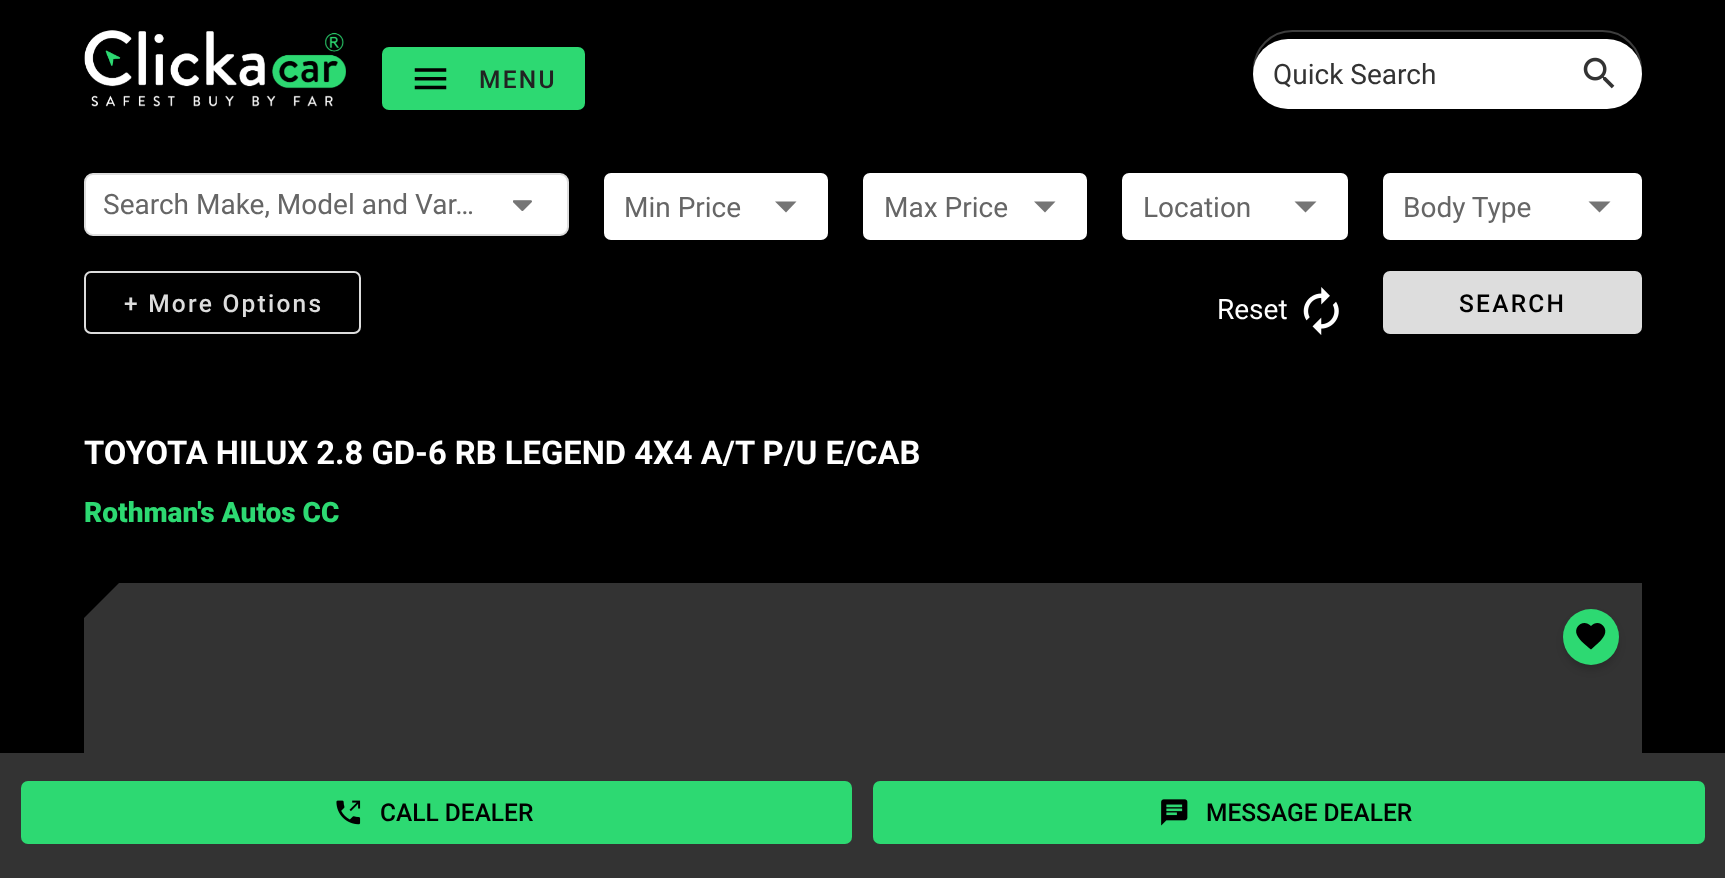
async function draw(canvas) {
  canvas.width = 1725;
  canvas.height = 878;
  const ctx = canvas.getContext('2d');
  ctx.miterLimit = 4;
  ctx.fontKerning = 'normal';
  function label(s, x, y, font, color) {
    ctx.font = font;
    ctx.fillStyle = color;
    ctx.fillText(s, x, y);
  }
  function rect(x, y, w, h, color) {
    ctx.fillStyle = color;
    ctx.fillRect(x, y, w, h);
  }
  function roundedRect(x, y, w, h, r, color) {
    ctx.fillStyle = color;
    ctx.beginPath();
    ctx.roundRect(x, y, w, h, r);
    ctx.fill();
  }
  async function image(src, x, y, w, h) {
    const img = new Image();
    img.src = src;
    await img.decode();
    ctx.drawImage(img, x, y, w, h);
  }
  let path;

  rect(0, 0, 1725, 878, '#000');
  await image('assets/img1.png', 84, 30, 262, 77);
  roundedRect(382, 47, 203, 63, 7, '#2dd972');
  await image('assets/img2.png', 414, 68, 33, 22);
  ctx.letterSpacing = '2.25px';
  label('MENU', 479, 88, '500 24.5px Roboto', '#222');
  roundedRect(1253, 39, 389, 70, 35, '#fff');
  ctx.beginPath();
  ctx.roundRect(1254, 31, 387, 77, 38.5);
  ctx.strokeStyle = '#ffffff3d';
  ctx.lineWidth = 2;
  ctx.stroke();
  ctx.letterSpacing = '0px';
  label('Quick Search', 1273, 84, '28px Roboto', '#333');
  await image('assets/img3.png', 1583, 57, 32, 32);
  ctx.fillStyle = '#fff';
  ctx.beginPath();
  ctx.roundRect(85, 174, 483, 61, 8);
  ctx.fill();
  ctx.strokeStyle = '#ddd';
  ctx.stroke();
  label('Search Make, Model and Var…', 103, 214, '28px Roboto', '#666');
  await image('assets/img4.png', 513, 200, 19, 11);
  roundedRect(604, 173, 224, 67, 7, '#fff');
  label('Min Price', 624, 217, '28px Roboto', '#666');
  ctx.fillStyle = '#757575';
  path = new Path2D('M775 201.5L786 212.5L796.5 201.5Z');
  ctx.fill(path);
  roundedRect(863, 173, 224, 67, 7, '#fff');
  label('Max Price', 884, 217, '28px Roboto', '#666');
  ctx.fillStyle = '#757575';
  path = new Path2D('M1034 201.5L1045 212.5L1055.5 201.5Z');
  ctx.fill(path);
  roundedRect(1122, 173, 226, 67, 7, '#fff');
  label('Location', 1143, 217, '28px Roboto', '#666');
  ctx.fillStyle = '#757575';
  path = new Path2D('M1294.5 201.5L1305.5 212.5L1316.5 201.5Z');
  ctx.fill(path);
  roundedRect(1383, 173, 259, 67, 7, '#fff');
  label('Body Type', 1403, 217, '28px Roboto', '#666');
  ctx.fillStyle = '#757575';
  path = new Path2D('M1588.5 201.5L1599.5 212.5L1610.5 201.5Z');
  ctx.fill(path);
  ctx.beginPath();
  ctx.roundRect(85, 272, 275, 61, 6);
  ctx.stroke();
  ctx.letterSpacing = '2.25px';
  label('+ More Options', 124, 312, '500 24.5px Roboto', '#ddd');
  ctx.letterSpacing = '0px';
  label('Reset', 1217, 319, '28px Roboto', '#fff');
  await image('assets/img5.png', 1303, 287, 36, 48);
  roundedRect(1383, 271, 259, 63, 7, '#ddd');
  ctx.letterSpacing = '2.25px';
  label('SEARCH', 1459, 312, '500 24.5px Roboto', '#000');
  ctx.letterSpacing = '0px';
  label('TOYOTA HILUX 2.8 GD-6 RB LEGEND 4X4 A/T P/U E/CAB', 84, 464, 'bold 32.75px Roboto', '#fff');
  label('Rothman\'s Autos CC', 84, 522, '900 28px Roboto', '#2dd972');
  rect(84, 583, 1558, 170, '#333');
  ctx.fillStyle = '#000';
  path = new Path2D('M84 583H119L84 618Z');
  ctx.fill(path);
  ctx.fillStyle = '#00000033';
  ctx.filter = 'blur(4.5px)';
  ctx.beginPath();
  ctx.roundRect(1565, 616, 52, 53, 26);
  ctx.fill();
  ctx.filter = 'none';
  ctx.fillStyle = '#2dd972';
  ctx.beginPath();
  ctx.arc(1591, 637, 28, 0, 2 * Math.PI);
  ctx.fill();
  ctx.fillStyle = '#000';
  path = new Path2D('M1591 649.5C1586 645.5 1579.5 640.5 1577 635C1573 626 1584 618.5 1591 626C1597.5 618.5 1608.5 626 1604.5 635C1602 640.5 1595.5 645.5 1591 649.5Z');
  ctx.fill(path);
  rect(0, 753, 1725, 125, '#333');
  roundedRect(21, 781, 831, 63, 7, '#2dd972');
  await image('assets/img6.png', 336, 800, 25, 25);
  label('CALL DEALER', 380, 821, '500 24.5px Roboto', '#000');
  roundedRect(873, 781, 832, 63, 7, '#2dd972');
  await image('assets/img7.png', 1161, 799, 27, 27);
  label('MESSAGE DEALER', 1206, 821, '500 24.5px Roboto', '#000');
}

draw(document.querySelector('canvas'));
